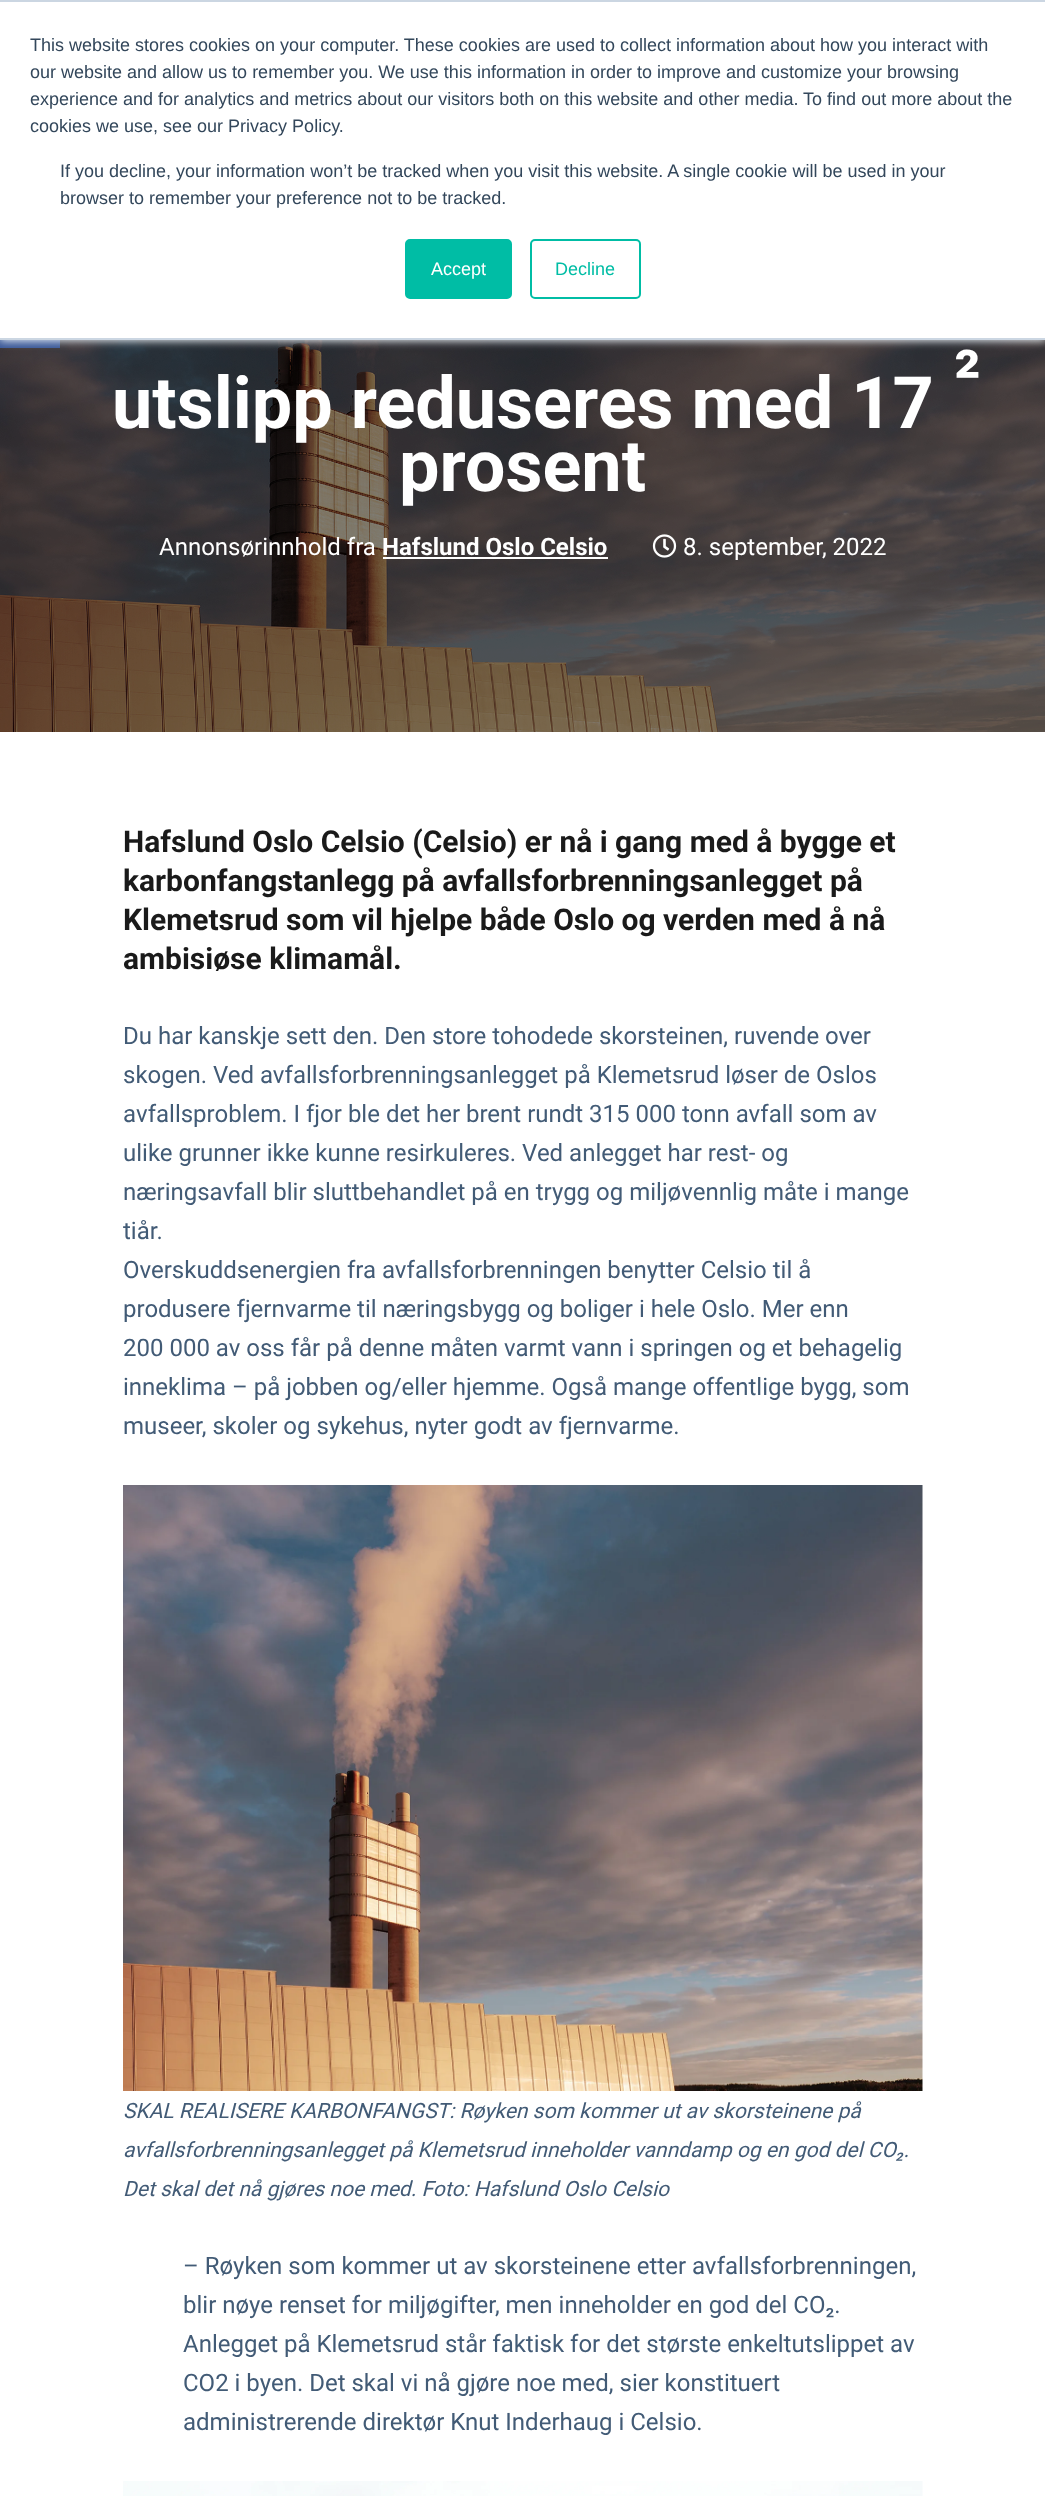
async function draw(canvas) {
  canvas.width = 1045;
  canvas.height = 2496;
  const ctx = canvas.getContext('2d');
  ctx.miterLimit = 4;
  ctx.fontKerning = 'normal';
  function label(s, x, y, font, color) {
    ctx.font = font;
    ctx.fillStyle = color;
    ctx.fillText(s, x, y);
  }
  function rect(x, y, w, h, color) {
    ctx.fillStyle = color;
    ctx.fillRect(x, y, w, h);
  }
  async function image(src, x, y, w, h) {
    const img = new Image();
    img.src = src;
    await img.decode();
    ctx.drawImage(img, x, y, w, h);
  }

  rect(0, 0, 1045, 2496, '#fff');
  await image('assets/img1.png', 0, 340, 1045, 392);
  rect(0, 340, 60, 8, '#3b5998');
  ctx.fillStyle = '#eaf0f6';
  ctx.filter = 'blur(4px)';
  ctx.beginPath();
  ctx.rect(0, 2, 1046, 339);
  ctx.fill();
  ctx.filter = 'none';
  rect(0, 2, 1045, 336, '#fff');
  rect(0, 0, 1045, 2, '#cbd6e2');
  rect(0, 338, 1045, 2, '#cbd6e2');
  label('This website stores cookies on your computer. These cookies are used to collect information about how you interact with', 30, 51, '18px Liberation Sans', '#33475b');
  label('our website and allow us to remember you. We use this information in order to improve and customize your browsing', 30, 78, '18px Liberation Sans', '#33475b');
  label('experience and for analytics and metrics about our visitors both on this website and other media. To find out more about the', 30, 105, '18px Liberation Sans', '#33475b');
  label('cookies we use, see our Privacy Policy.', 30, 132, '18px Liberation Sans', '#33475b');
  label('If you decline, your information won’t be tracked when you visit this website. A single cookie will be used in your', 60, 177, '18px Liberation Sans', '#33475b');
  label('browser to remember your preference not to be tracked.', 60, 204, '18px Liberation Sans', '#33475b');
  ctx.fillStyle = '#00bda5';
  ctx.beginPath();
  ctx.roundRect(406, 240, 105, 58, 4);
  ctx.fill();
  ctx.strokeStyle = '#00bda5';
  ctx.lineWidth = 2;
  ctx.stroke();
  label('Accept', 431, 275, '18px Liberation Sans', '#fff');
  ctx.beginPath();
  ctx.roundRect(531, 240, 109, 58, 4);
  ctx.stroke();
  label('Decline', 555, 275, '18px Liberation Sans', '#00bda5');
  label('₂', 954, 365, 'bold 72px Roboto', '#fff');
  label('utslipp reduseres med 17', 112, 428, 'bold 72px Roboto', '#fff');
  label('prosent', 399, 491, 'bold 72px Roboto', '#fff');
  label('Annonsørinnhold fra', 159, 555, '24px Roboto', '#fff');
  label('Hafslund Oslo Celsio', 382, 555, 'bold 24px Roboto', '#fff');
  rect(383, 557, 225, 2, '#fff');
  await image('assets/img2.png', 652, 534, 25, 24);
  label('8. september, 2022', 683, 555, '24px Roboto', '#fff');
  label('Hafslund Oslo Celsio (Celsio) er nå i gang med å bygge et', 123, 852, 'bold 30px Roboto', '#1a1a1a');
  label('karbonfangstanlegg på avfallsforbrenningsanlegget på', 123, 891, 'bold 30px Roboto', '#1a1a1a');
  label('Klemetsrud som vil hjelpe både Oslo og verden med å nå', 123, 930, 'bold 30px Roboto', '#1a1a1a');
  label('ambisiøse klimamål.', 123, 969, 'bold 30px Roboto', '#1a1a1a');
  label('Du har kanskje sett den. Den store tohodede skorsteinen, ruvende over', 123, 1044, '24px Roboto', '#425b76');
  label('skogen. Ved avfallsforbrenningsanlegget på Klemetsrud løser de Oslos', 123, 1083, '24px Roboto', '#425b76');
  label('avfallsproblem. I fjor ble det her brent rundt 315 000 tonn avfall som av', 123, 1122, '24px Roboto', '#425b76');
  label('ulike grunner ikke kunne resirkuleres. Ved anlegget har rest- og', 123, 1161, '24px Roboto', '#425b76');
  label('næringsavfall blir sluttbehandlet på en trygg og miljøvennlig måte i mange', 123, 1200, '24px Roboto', '#425b76');
  label('tiår.', 123, 1239, '24px Roboto', '#425b76');
  label('Overskuddsenergien fra avfallsforbrenningen benytter Celsio til å', 123, 1278, '24px Roboto', '#425b76');
  label('produsere fjernvarme til næringsbygg og boliger i hele Oslo. Mer enn', 123, 1317, '24px Roboto', '#425b76');
  label('200 000 av oss får på denne måten varmt vann i springen og et behagelig', 123, 1356, '24px Roboto', '#425b76');
  label('inneklima – på jobben og/eller hjemme. Også mange offentlige bygg, som', 123, 1395, '24px Roboto', '#425b76');
  label('museer, skoler og sykehus, nyter godt av fjernvarme.', 123, 1434, '24px Roboto', '#425b76');
  await image('assets/img3.png', 123, 1485, 800, 606);
  label('SKAL REALISERE KARBONFANGST: Røyken som kommer ut av skorsteinene på', 123, 2118, 'italic 21px Roboto', '#425b76');
  label('avfallsforbrenningsanlegget på Klemetsrud inneholder vanndamp og en god del CO₂.', 123, 2157, 'italic 21px Roboto', '#425b76');
  label('Det skal det nå gjøres noe med. Foto: Hafslund Oslo Celsio', 123, 2196, 'italic 21px Roboto', '#425b76');
  label('– Røyken som kommer ut av skorsteinene etter avfallsforbrenningen,', 183, 2274, '24px Roboto', '#425b76');
  label('blir nøye renset for miljøgifter, men inneholder en god del CO₂.', 183, 2313, '24px Roboto', '#425b76');
  label('Anlegget på Klemetsrud står faktisk for det største enkeltutslippet av', 183, 2352, '24px Roboto', '#425b76');
  label('CO2 i byen. Det skal vi nå gjøre noe med, sier konstituert', 183, 2391, '24px Roboto', '#425b76');
  label('administrerende direktør Knut Inderhaug i Celsio.', 183, 2430, '24px Roboto', '#425b76');
  await image('assets/img4.png', 123, 2481, 800, 15);
}

draw(document.querySelector('canvas'));
